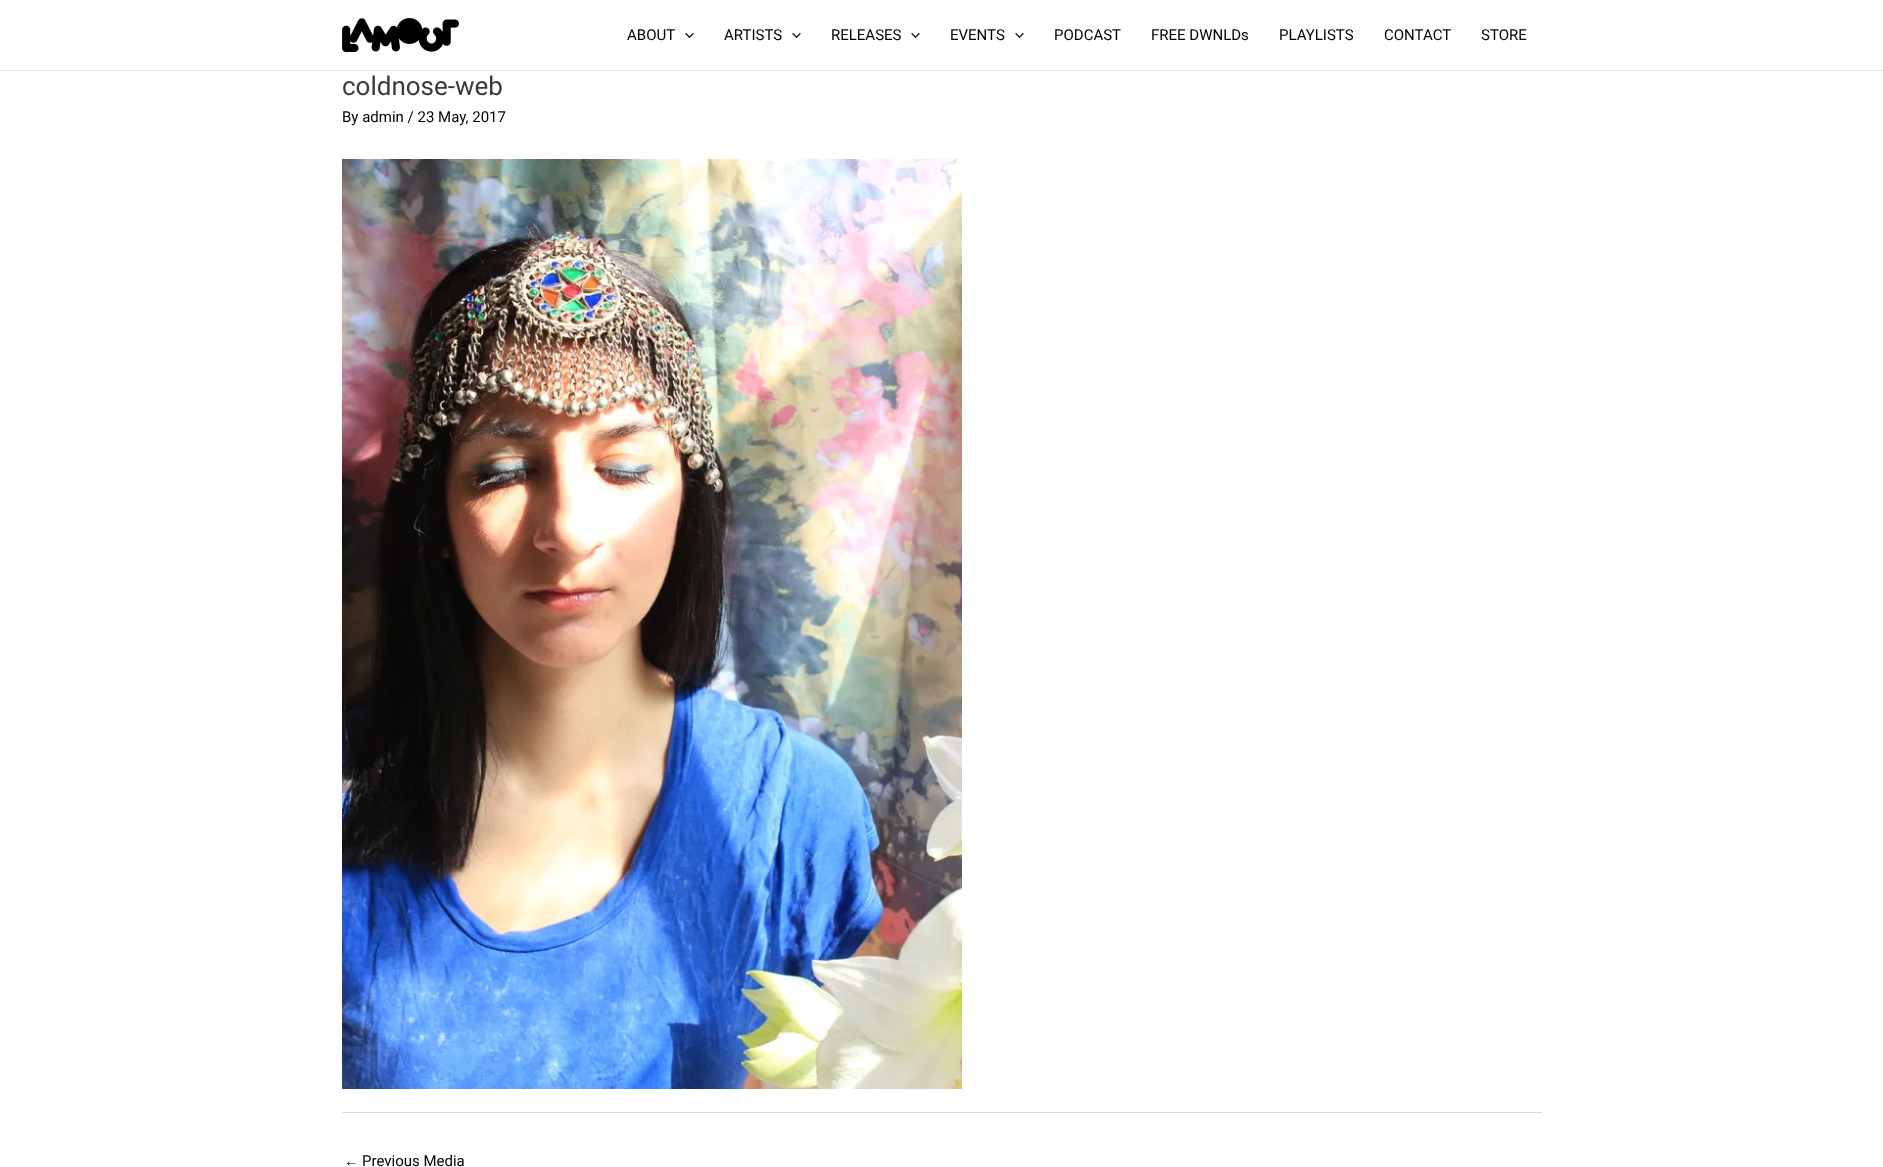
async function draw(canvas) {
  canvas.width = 1883;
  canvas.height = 1167;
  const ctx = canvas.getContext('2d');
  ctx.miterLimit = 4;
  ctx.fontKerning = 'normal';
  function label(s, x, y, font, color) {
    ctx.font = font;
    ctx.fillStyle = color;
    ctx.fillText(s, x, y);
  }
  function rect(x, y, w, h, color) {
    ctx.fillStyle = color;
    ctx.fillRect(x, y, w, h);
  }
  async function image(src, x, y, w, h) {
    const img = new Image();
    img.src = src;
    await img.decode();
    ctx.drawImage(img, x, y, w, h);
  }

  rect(0, 0, 1883, 1167, '#fff');
  rect(0, 70, 1883, 1, '#e5e5e5');
  await image('assets/img1.png', 342, 18, 117, 34);
  label('ABOUT', 627, 40, '15px Roboto', '#000');
  await image('assets/img2.png', 685, 33, 9, 5);
  label('ARTISTS', 724, 40, '15px Roboto', '#000');
  await image('assets/img2.png', 792, 33, 9, 5);
  label('RELEASES', 831, 40, '15px Roboto', '#000');
  await image('assets/img2.png', 911, 33, 9, 5);
  label('EVENTS', 950, 40, '15px Roboto', '#000');
  await image('assets/img2.png', 1015, 33, 9, 5);
  label('PODCAST', 1054, 40, '15px Roboto', '#000');
  label('FREE DWNLDs', 1151, 40, '15px Roboto', '#000');
  label('PLAYLISTS', 1279, 40, '15px Roboto', '#000');
  label('CONTACT', 1384, 40, '15px Roboto', '#000');
  label('STORE', 1481, 40, '15px Roboto', '#000');
  label('coldnose-web', 342, 95, '26px Roboto', '#3a3a3a');
  label('By admin / 23 May, 2017', 342, 122, '15px Roboto', '#000');
  await image('assets/img3.png', 342, 159, 620, 930);
  rect(342, 1112, 1200, 1, '#ddd');
  label('←', 344, 1166, '15px Liberation Sans', '#000');
  label('Previous Media', 362, 1166, '15px Roboto', '#000');
}

draw(document.querySelector('canvas'));
